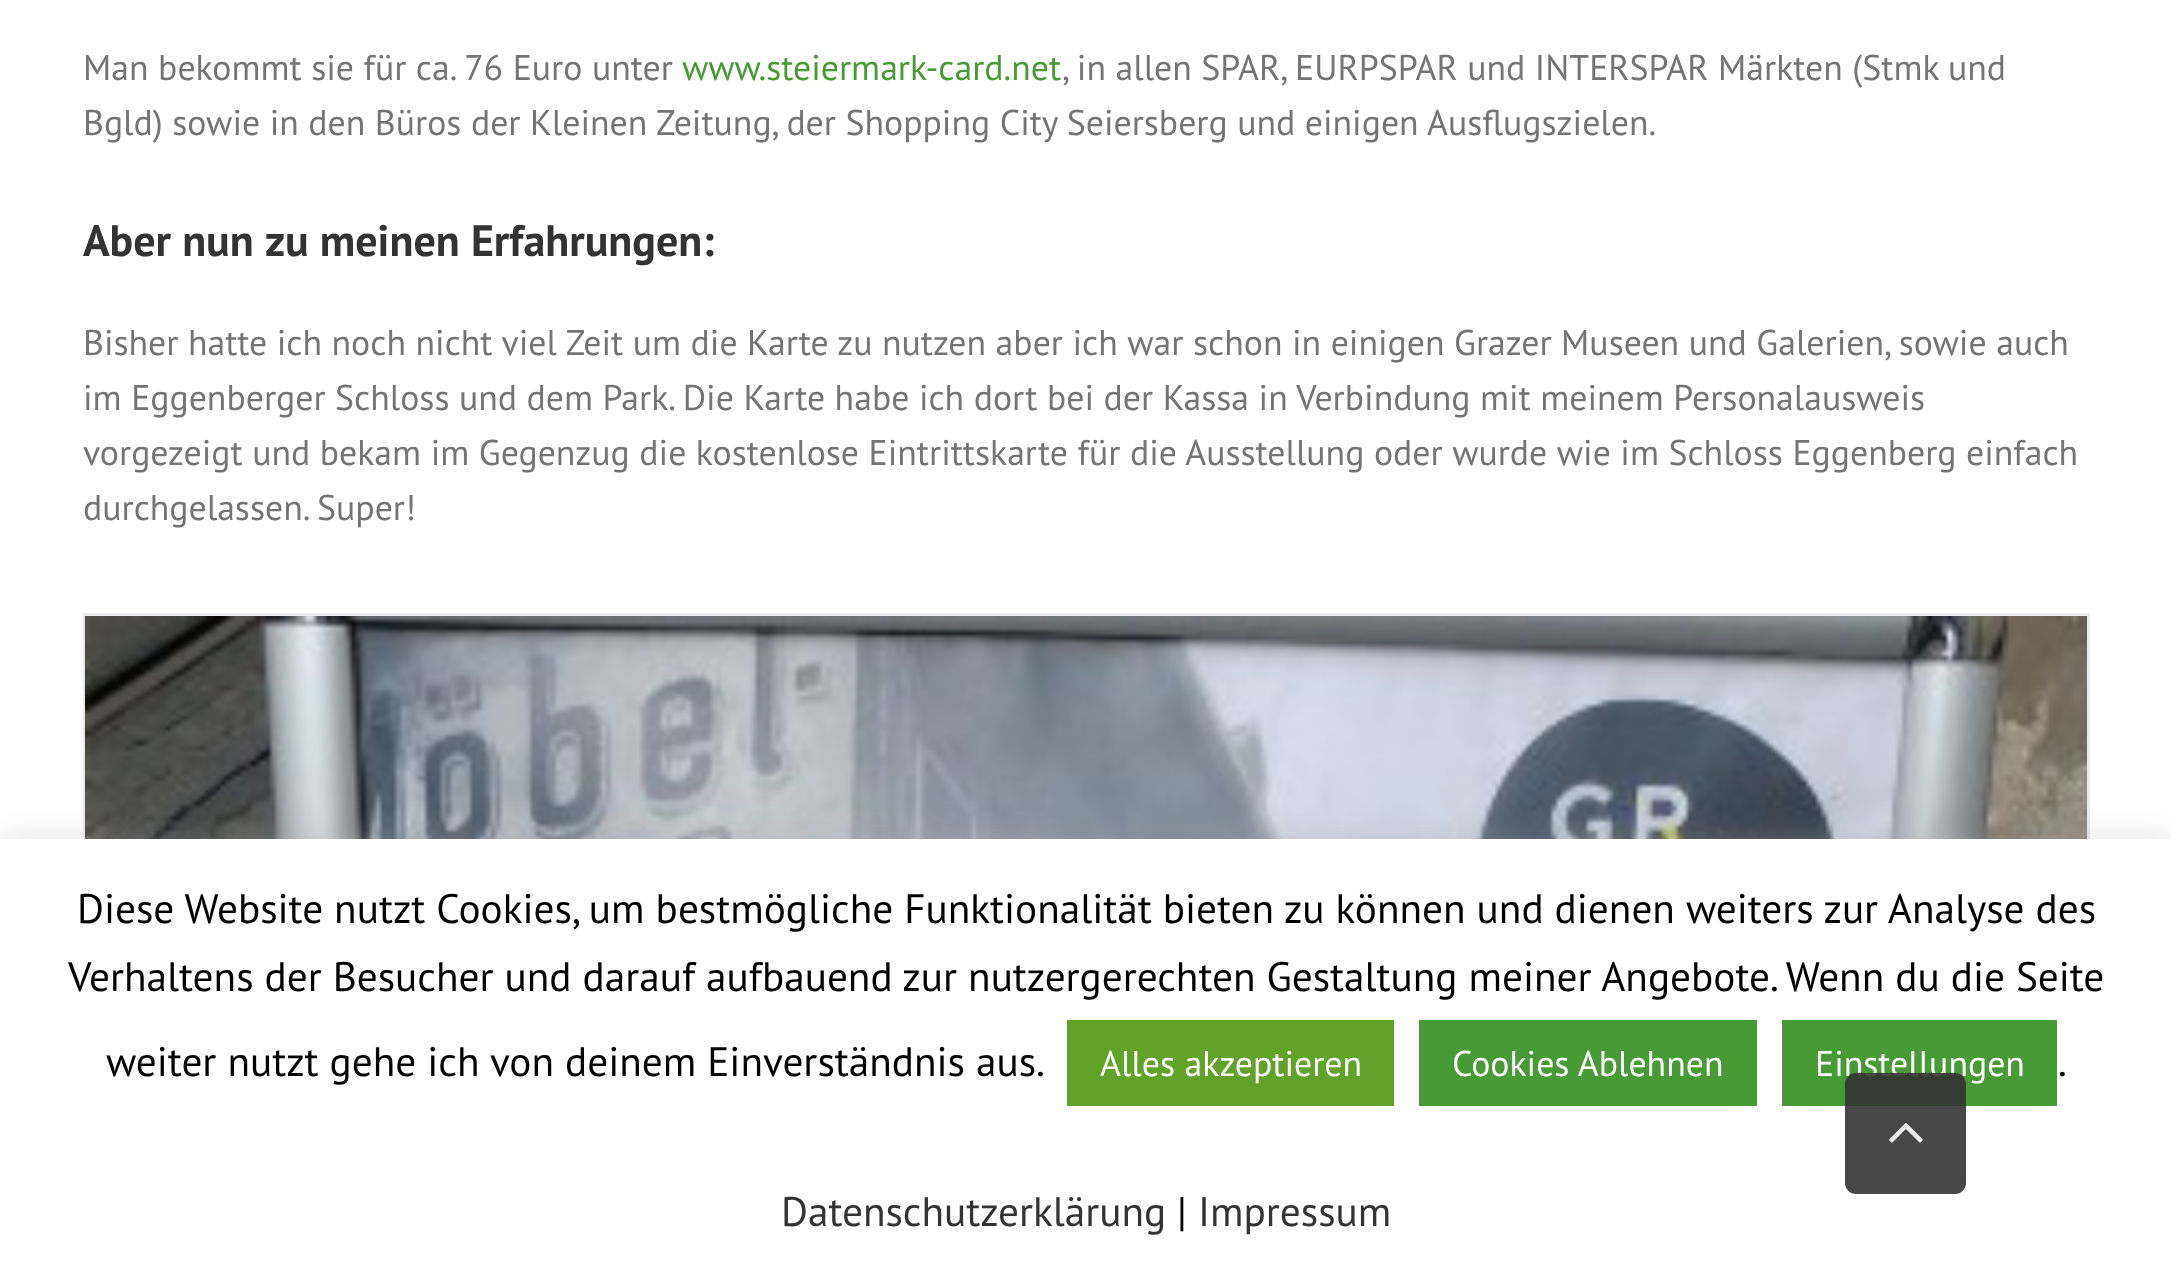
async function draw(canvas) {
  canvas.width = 2171;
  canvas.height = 1276;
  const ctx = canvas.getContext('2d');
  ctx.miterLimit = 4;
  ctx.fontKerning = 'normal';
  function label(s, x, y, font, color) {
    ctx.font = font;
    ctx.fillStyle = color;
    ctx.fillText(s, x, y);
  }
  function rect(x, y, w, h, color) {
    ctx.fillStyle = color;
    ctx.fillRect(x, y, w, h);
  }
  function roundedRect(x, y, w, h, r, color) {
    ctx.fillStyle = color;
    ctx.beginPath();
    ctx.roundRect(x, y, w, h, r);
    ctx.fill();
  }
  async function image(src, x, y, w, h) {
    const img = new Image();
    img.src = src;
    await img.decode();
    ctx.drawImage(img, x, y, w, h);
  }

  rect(0, 0, 2171, 1276, '#fff');
  label('Man bekommt sie für ca. 76 Euro unter', 83, 80, '35.75px PT Sans', '#747474');
  label('www.steiermark-card.net', 682, 80, '35.75px PT Sans', '#479b35');
  label(', in allen SPAR, EURPSPAR und INTERSPAR Märkten (Stmk und', 1062, 80, '35.75px PT Sans', '#747474');
  label('Bgld) sowie in den Büros der Kleinen Zeitung, der Shopping City Seiersberg und einigen Ausflugszielen.', 83, 135, '35.75px PT Sans', '#747474');
  label('Aber nun zu meinen Erfahrungen:', 83, 256, 'bold 44px PT Sans', '#333');
  label('Bisher hatte ich noch nicht viel Zeit um die Karte zu nutzen aber ich war schon in einigen Grazer Museen und Galerien, sowie auch', 83, 355, '35.75px PT Sans', '#747474');
  label('im Eggenberger Schloss und dem Park. Die Karte habe ich dort bei der Kassa in Verbindung mit meinem Personalausweis', 83, 410, '35.75px PT Sans', '#747474');
  label('vorgezeigt und bekam im Gegenzug die kostenlose Eintrittskarte für die Ausstellung oder wurde wie im Schloss Eggenberg einfach', 83, 465, '35.75px PT Sans', '#747474');
  label('durchgelassen. Super!', 83, 520, '35.75px PT Sans', '#747474');
  ctx.strokeStyle = '#e9eaee';
  ctx.lineWidth = 3;
  ctx.strokeRect(84.5, 614.5, 2004, 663);
  await image('assets/img1.png', 85, 616, 2002, 223);
  ctx.fillStyle = '#acabab4d';
  ctx.filter = 'blur(14px)';
  ctx.beginPath();
  ctx.rect(0, 836, 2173, 437);
  ctx.fill();
  ctx.filter = 'none';
  rect(0, 839, 2171, 437, '#fff');
  label('Diese Website nutzt Cookies, um bestmögliche Funktionalität bieten zu können und dienen weiters zur Analyse des', 77, 923, '41.25px PT Sans', '#000');
  label('Verhaltens der Besucher und darauf aufbauend zur nutzergerechten Gestaltung meiner Angebote. Wenn du die Seite', 68, 991, '41.25px PT Sans', '#000');
  label('weiter nutzt gehe ich von deinem Einverständnis aus.', 106, 1076, '41.25px PT Sans', '#000');
  rect(1067, 1020, 327, 86, '#61a229');
  label('Alles akzeptieren', 1100, 1076, '35.75px PT Sans', '#fff');
  rect(1419, 1020, 338, 86, '#479b35');
  label('Cookies Ablehnen', 1452, 1076, '35.75px PT Sans', '#fff');
  rect(1782, 1020, 275, 86, '#479b35');
  label('Einstellungen', 1815, 1076, '35.75px PT Sans', '#fff');
  label('.', 2058, 1076, '41.25px PT Sans', '#000');
  label('Datenschutzerklärung', 781, 1226, '41.25px PT Sans', '#333');
  label('|', 1177, 1226, '41.25px PT Sans', '#000');
  label('Impressum', 1198, 1226, '41.25px PT Sans', '#333');
  roundedRect(1845, 1073, 121, 121, 11, '#333333e6');
  await image('assets/img2.png', 1889, 1123, 34, 20);
}

draw(document.querySelector('canvas'));
